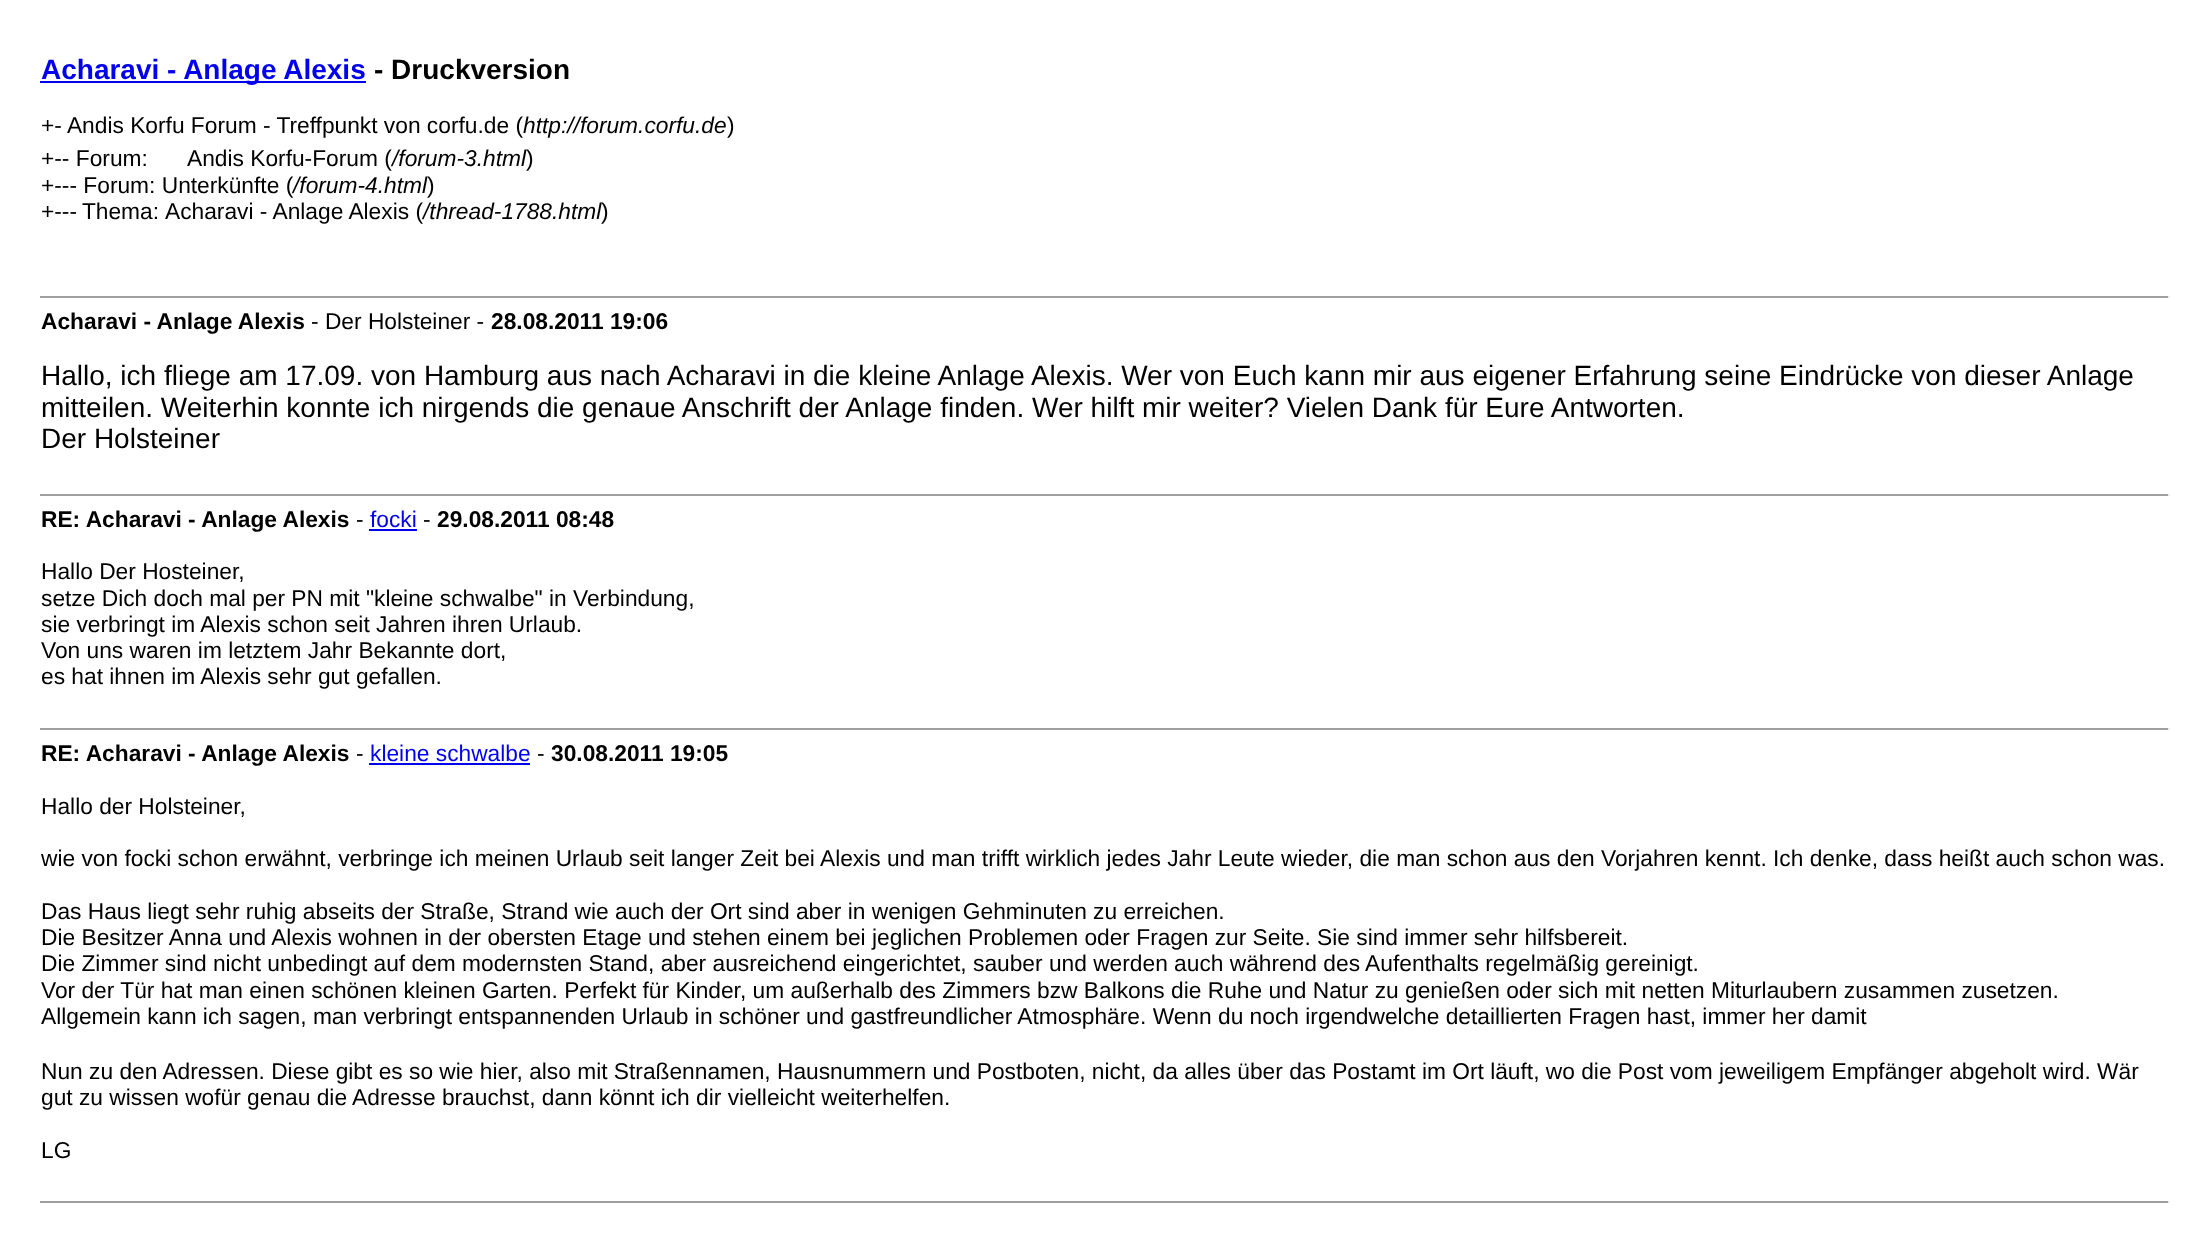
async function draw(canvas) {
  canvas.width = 2210;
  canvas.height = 1235;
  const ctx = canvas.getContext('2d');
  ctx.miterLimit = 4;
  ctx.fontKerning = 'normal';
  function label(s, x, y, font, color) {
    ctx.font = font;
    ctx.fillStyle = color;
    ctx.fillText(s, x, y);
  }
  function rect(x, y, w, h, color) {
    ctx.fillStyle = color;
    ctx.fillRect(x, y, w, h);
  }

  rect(0, 0, 2210, 1235, '#fff');
  rect(40, 81, 326, 2, '#00e');
  label('Acharavi - Anlage Alexis', 41, 79, 'bold 28px Liberation Sans', '#00e');
  label('- Druckversion', 374, 79, 'bold 28px Liberation Sans', '#000');
  label('+- Andis Korfu Forum - Treffpunkt von corfu.de (', 41, 133, '22.75px Liberation Sans', '#000');
  label('http://forum.corfu.de', 523, 133, 'italic 22.75px Liberation Sans', '#000');
  label(')', 727, 133, '22.75px Liberation Sans', '#000');
  label('+-- Forum:', 41, 166, '22.75px Liberation Sans', '#000');
  label('Andis Korfu-Forum (', 187, 166, '22.75px Liberation Sans', '#000');
  label('/forum-3.html', 392, 166, 'italic 22.75px Liberation Sans', '#000');
  label(')', 526, 166, '22.75px Liberation Sans', '#000');
  label('+--- Forum: Unterkünfte (', 41, 193, '22.75px Liberation Sans', '#000');
  label('/forum-4.html', 293, 193, 'italic 22.75px Liberation Sans', '#000');
  label(')', 427, 193, '22.75px Liberation Sans', '#000');
  ctx.wordSpacing = '-1px';
  label('+--- Thema:', 41, 219, '22.75px Liberation Sans', '#000');
  ctx.wordSpacing = '0px';
  label('Acharavi - Anlage Alexis (', 165, 219, '22.75px Liberation Sans', '#000');
  label('/thread-1788.html', 423, 219, 'italic 22.75px Liberation Sans', '#000');
  label(')', 601, 219, '22.75px Liberation Sans', '#000');
  rect(40, 296, 2130, 2, '#9f9f9f');
  rect(2168, 296, 2, 2, '#eee');
  label('Acharavi - Anlage Alexis', 41, 329, 'bold 22.75px Liberation Sans', '#000');
  label('- Der Holsteiner -', 311, 329, '22.75px Liberation Sans', '#000');
  label('28.08.2011 19:06', 491, 329, 'bold 22.75px Liberation Sans', '#000');
  label('Hallo, ich fliege am 17.09. von Hamburg aus nach Acharavi in die kleine Anlage Alexis. Wer von Euch kann mir aus eigener Erfahrung seine Eindrücke von dieser Anlage', 41, 385, '28px Liberation Sans', '#000');
  label('mitteilen. Weiterhin konnte ich nirgends die genaue Anschrift der Anlage finden. Wer hilft mir weiter? Vielen Dank für Eure Antworten.', 41, 417, '28px Liberation Sans', '#000');
  label('Der Holsteiner', 41, 448, '28px Liberation Sans', '#000');
  rect(40, 494, 2130, 2, '#9f9f9f');
  rect(2168, 494, 2, 2, '#eee');
  label('RE: Acharavi - Anlage Alexis', 41, 527, 'bold 22.75px Liberation Sans', '#000');
  label('-', 356, 527, '22.75px Liberation Sans', '#000');
  label('focki', 370, 527, '22.75px Liberation Sans', '#00e');
  rect(369, 529, 48, 2, '#00e');
  label('-', 423, 527, '22.75px Liberation Sans', '#000');
  label('29.08.2011 08:48', 437, 527, 'bold 22.75px Liberation Sans', '#000');
  label('Hallo Der Hosteiner,', 41, 579, '22.75px Liberation Sans', '#000');
  label('setze Dich doch mal per PN mit "kleine schwalbe" in Verbindung,', 41, 606, '22.75px Liberation Sans', '#000');
  label('sie verbringt im Alexis schon seit Jahren ihren Urlaub.', 41, 632, '22.75px Liberation Sans', '#000');
  label('Von uns waren im letztem Jahr Bekannte dort,', 41, 658, '22.75px Liberation Sans', '#000');
  label('es hat ihnen im Alexis sehr gut gefallen.', 41, 684, '22.75px Liberation Sans', '#000');
  rect(40, 728, 2130, 2, '#9f9f9f');
  rect(2168, 728, 2, 2, '#eee');
  label('RE: Acharavi - Anlage Alexis', 41, 761, 'bold 22.75px Liberation Sans', '#000');
  label('-', 356, 761, '22.75px Liberation Sans', '#000');
  label('kleine schwalbe', 370, 761, '22.75px Liberation Sans', '#00e');
  rect(369, 763, 161, 2, '#00e');
  label('-', 537, 761, '22.75px Liberation Sans', '#000');
  label('30.08.2011 19:05', 551, 761, 'bold 22.75px Liberation Sans', '#000');
  label('Hallo der Holsteiner,', 41, 814, '22.75px Liberation Sans', '#000');
  label('wie von focki schon erwähnt, verbringe ich meinen Urlaub seit langer Zeit bei Alexis und man trifft wirklich jedes Jahr Leute wieder, die man schon aus den Vorjahren kennt. Ich denke, dass heißt auch schon was.', 41, 866, '22.75px Liberation Sans', '#000');
  label('Das Haus liegt sehr ruhig abseits der Straße, Strand wie auch der Ort sind aber in wenigen Gehminuten zu erreichen.', 41, 919, '22.75px Liberation Sans', '#000');
  label('Die Besitzer Anna und Alexis wohnen in der obersten Etage und stehen einem bei jeglichen Problemen oder Fragen zur Seite. Sie sind immer sehr hilfsbereit.', 41, 945, '22.75px Liberation Sans', '#000');
  label('Die Zimmer sind nicht unbedingt auf dem modernsten Stand, aber ausreichend eingerichtet, sauber und werden auch während des Aufenthalts regelmäßig gereinigt.', 41, 971, '22.75px Liberation Sans', '#000');
  label('Vor der Tür hat man einen schönen kleinen Garten. Perfekt für Kinder, um außerhalb des Zimmers bzw Balkons die Ruhe und Natur zu genießen oder sich mit netten Miturlaubern zusammen zusetzen.', 41, 998, '22.75px Liberation Sans', '#000');
  label('Allgemein kann ich sagen, man verbringt entspannenden Urlaub in schöner und gastfreundlicher Atmosphäre. Wenn du noch irgendwelche detaillierten Fragen hast, immer her damit', 41, 1024, '22.75px Liberation Sans', '#000');
  label('Nun zu den Adressen. Diese gibt es so wie hier, also mit Straßennamen, Hausnummern und Postboten, nicht, da alles über das Postamt im Ort läuft, wo die Post vom jeweiligem Empfänger abgeholt wird. Wär', 41, 1079, '22.75px Liberation Sans', '#000');
  label('gut zu wissen wofür genau die Adresse brauchst, dann könnt ich dir vielleicht weiterhelfen.', 41, 1105, '22.75px Liberation Sans', '#000');
  label('LG', 41, 1158, '22.75px Liberation Sans', '#000');
  rect(40, 1201, 2130, 2, '#9f9f9f');
  rect(2168, 1201, 2, 2, '#eee');
}

draw(document.querySelector('canvas'));
